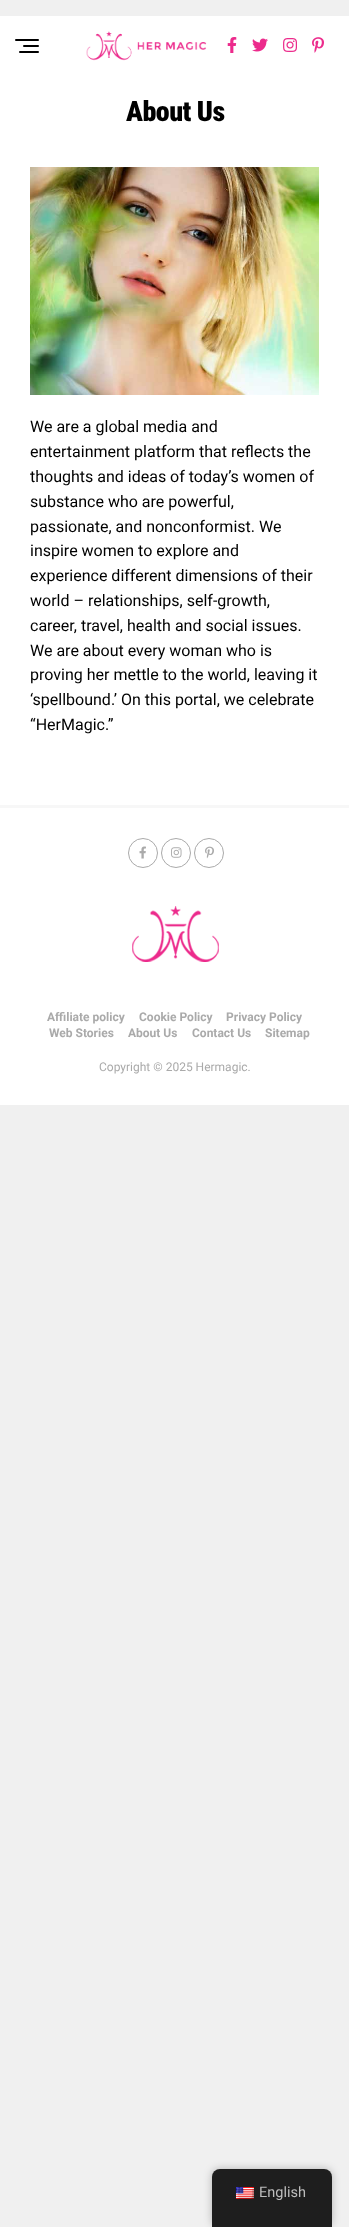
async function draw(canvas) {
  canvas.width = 349;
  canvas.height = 2227;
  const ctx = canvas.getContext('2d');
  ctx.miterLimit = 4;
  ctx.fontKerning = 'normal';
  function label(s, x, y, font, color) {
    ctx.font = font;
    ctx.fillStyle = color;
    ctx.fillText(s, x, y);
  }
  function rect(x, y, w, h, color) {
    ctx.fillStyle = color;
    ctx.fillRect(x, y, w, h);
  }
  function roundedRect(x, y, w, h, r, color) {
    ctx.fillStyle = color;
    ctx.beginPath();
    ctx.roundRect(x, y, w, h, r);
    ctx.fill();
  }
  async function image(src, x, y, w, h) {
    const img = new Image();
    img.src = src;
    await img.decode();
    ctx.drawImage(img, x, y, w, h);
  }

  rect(0, 0, 349, 2227, '#f0f0f0');
  rect(0, 16, 349, 789, '#fff');
  roundedRect(15, 39, 24, 2, 1, '#000');
  roundedRect(23, 45, 16, 2, 1, '#000');
  roundedRect(19, 51, 20, 2, 1, '#000');
  await image('assets/img1.png', 86, 31, 121, 30);
  await image('assets/img2.png', 227, 37, 10, 16);
  await image('assets/img3.png', 252, 38, 16, 14);
  await image('assets/img4.png', 283, 38, 14, 14);
  await image('assets/img5.png', 312, 37, 12, 16);
  ctx.letterSpacing = '-0.5px';
  label('About Us', 126, 121, '900 28px Roboto Condensed', '#000');
  await image('assets/img6.png', 30, 167, 289, 228);
  ctx.letterSpacing = '0px';
  label('We are a global media and', 30, 432, '16px Roboto', '#000');
  label('entertainment platform that reflects the', 30, 457, '16px Roboto', '#000');
  label('thoughts and ideas of today’s women of', 30, 482, '16px Roboto', '#000');
  label('substance who are powerful,', 30, 507, '16px Roboto', '#000');
  label('passionate, and nonconformist. We', 30, 532, '16px Roboto', '#000');
  label('inspire women to explore and', 30, 556, '16px Roboto', '#000');
  label('experience different dimensions of their', 30, 581, '16px Roboto', '#000');
  label('world – relationships, self-growth,', 30, 606, '16px Roboto', '#000');
  label('career, travel, health and social issues.', 30, 631, '16px Roboto', '#000');
  label('We are about every woman who is', 30, 656, '16px Roboto', '#000');
  label('proving her mettle to the world, leaving it', 30, 680, '16px Roboto', '#000');
  label('‘spellbound.’ On this portal, we celebrate', 30, 705, '16px Roboto', '#000');
  label('“HerMagic.”', 30, 730, '16px Roboto', '#000');
  rect(0, 808, 349, 297, '#fff');
  rect(0, 805, 349, 3, '#f7f7f7');
  ctx.beginPath();
  ctx.arc(143, 853, 14.5, 0, 2 * Math.PI);
  ctx.strokeStyle = '#aaa';
  ctx.stroke();
  await image('assets/img7.png', 139, 846, 7, 13);
  ctx.beginPath();
  ctx.arc(176, 853, 14.5, 0, 2 * Math.PI);
  ctx.stroke();
  await image('assets/img8.png', 171, 847, 11, 11);
  ctx.beginPath();
  ctx.arc(209, 853, 14.5, 0, 2 * Math.PI);
  ctx.stroke();
  await image('assets/img9.png', 205, 846, 9, 13);
  await image('assets/img10.png', 132, 906, 87, 56);
  label('Affiliate policy', 47, 1021, 'bold 12px Roboto', '#aaa');
  label('Cookie Policy', 139, 1021, 'bold 12px Roboto', '#aaa');
  label('Privacy Policy', 226, 1021, 'bold 12px Roboto', '#aaa');
  label('Web Stories', 49, 1037, 'bold 12px Roboto', '#aaa');
  label('About Us', 128, 1037, 'bold 12px Roboto', '#aaa');
  label('Contact Us', 192, 1037, 'bold 12px Roboto', '#aaa');
  label('Sitemap', 265, 1037, 'bold 12px Roboto', '#aaa');
  label('Copyright © 2025 Hermagic.', 99, 1071, '12px Roboto', '#aaa');
  ctx.fillStyle = '#00000040';
  ctx.filter = 'blur(4px)';
  ctx.beginPath();
  ctx.roundRect(212, 2169, 120, 58, 8);
  ctx.fill();
  ctx.filter = 'none';
  ctx.fillStyle = '#1e1e1e';
  ctx.beginPath();
  ctx.roundRect(212, 2169, 120, 58, [8, 8, 0, 0]);
  ctx.fill();
  await image('assets/img11.png', 236, 2187, 18, 12);
  label('English', 259, 2197, '14.5px Roboto', '#bdbdbd');
}

draw(document.querySelector('canvas'));
